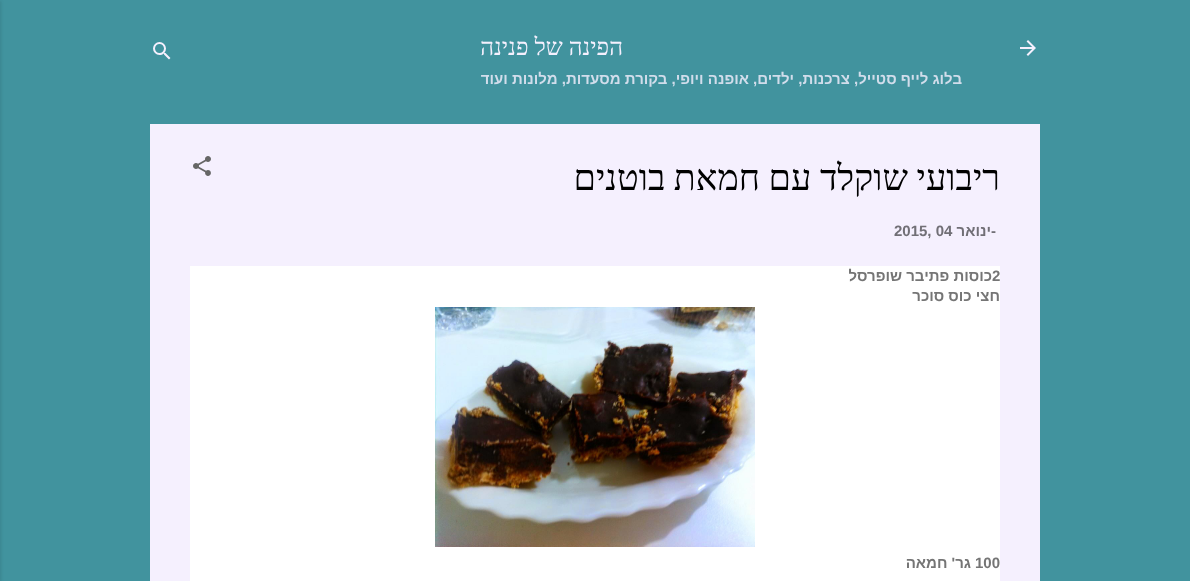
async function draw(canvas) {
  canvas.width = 1190;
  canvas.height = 581;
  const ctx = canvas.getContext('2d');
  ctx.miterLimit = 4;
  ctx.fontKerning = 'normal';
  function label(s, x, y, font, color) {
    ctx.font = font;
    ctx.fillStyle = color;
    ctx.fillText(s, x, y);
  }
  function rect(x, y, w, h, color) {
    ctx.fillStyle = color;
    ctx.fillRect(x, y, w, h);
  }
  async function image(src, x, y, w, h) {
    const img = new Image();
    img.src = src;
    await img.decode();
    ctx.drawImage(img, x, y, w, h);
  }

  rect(0, 0, 1190, 581, '#41939e');
  await image('assets/img1.png', 1020, 40, 16, 16);
  ctx.direction = 'rtl';
  label('הפינה של פנינה', 623, 55, '24px Liberation Serif', '#f5f0fe');
  label('בלוג לייף סטייל, צרכנות, ילדים, אופנה ויופי, בקורת מסעדות, מלונות ועוד', 962, 84, 'bold 15px Liberation Sans', '#d1ddeb');
  await image('assets/img2.png', 153, 42, 18, 18);
  rect(150, 124, 890, 457, '#f5f0fe');
  ctx.wordSpacing = '-0.5px';
  label('ריבועי שוקלד עם חמאת בוטנים', 1000, 190, '36px Liberation Serif', '#000');
  await image('assets/img3.png', 193, 156, 18, 20);
  ctx.wordSpacing = '0px';
  ctx.direction = 'ltr';
  label('-', 991, 236, 'bold 15px Liberation Sans', '#716f76');
  ctx.direction = 'rtl';
  label('ינואר', 991, 236, 'bold 15px Liberation Sans', '#716f76');
  ctx.direction = 'ltr';
  label('2015, 04', 894, 236, 'bold 15px Liberation Sans', '#716f76');
  rect(190, 266, 810, 315, '#fff');
  label('2', 992, 281, 'bold 15px Liberation Sans', '#757575');
  ctx.direction = 'rtl';
  label('כוסות פתיבר שופרסל', 992, 281, 'bold 15px Liberation Sans', '#757575');
  label('חצי כוס סוכר', 1000, 301, 'bold 15px Liberation Sans', '#757575');
  await image('assets/img4.png', 435, 307, 320, 240);
  ctx.direction = 'ltr';
  label('100', 975, 568, 'bold 15px Liberation Sans', '#757575');
  ctx.direction = 'rtl';
  label('גר\' חמאה', 971, 568, 'bold 15px Liberation Sans', '#757575');
  ctx.fillStyle = '#0000001a';
  ctx.filter = 'blur(1.5px)';
  ctx.beginPath();
  ctx.rect(-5, 1, 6, 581);
  ctx.fill();
  ctx.filter = 'none';
}

draw(document.querySelector('canvas'));
